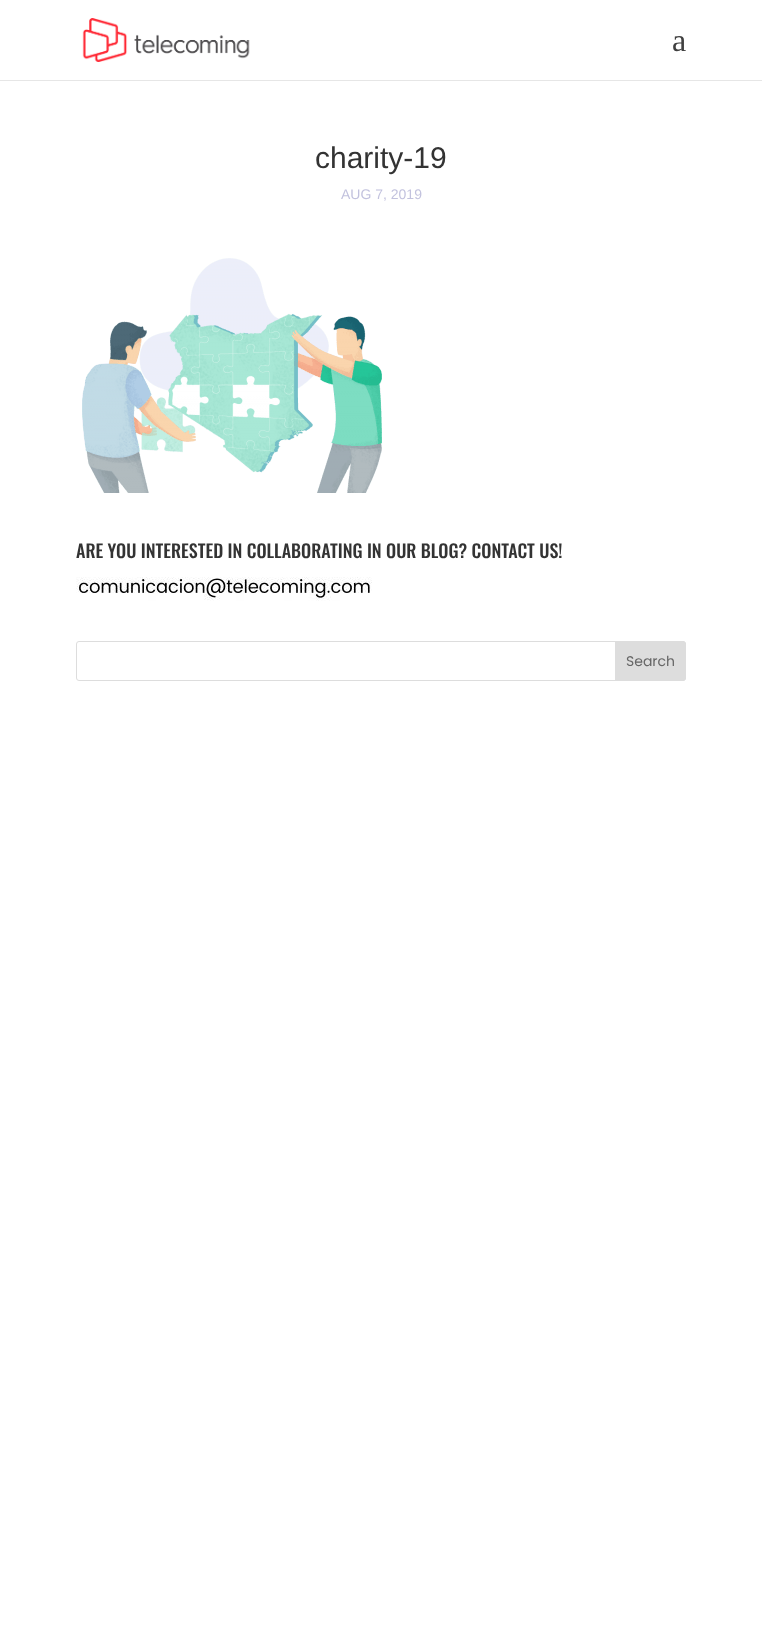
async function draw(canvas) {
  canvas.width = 762;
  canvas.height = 1633;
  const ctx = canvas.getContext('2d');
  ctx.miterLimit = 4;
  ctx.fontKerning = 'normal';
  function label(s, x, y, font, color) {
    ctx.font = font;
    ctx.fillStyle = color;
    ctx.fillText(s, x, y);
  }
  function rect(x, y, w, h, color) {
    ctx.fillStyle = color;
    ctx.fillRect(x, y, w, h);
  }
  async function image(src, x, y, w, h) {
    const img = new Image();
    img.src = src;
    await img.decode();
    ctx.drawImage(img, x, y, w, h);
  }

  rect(0, 0, 762, 1633, '#fff');
  rect(0, 80, 762, 1, '#e6e6e6');
  await image('assets/img1.png', 82, 18, 168, 44);
  label('a', 672, 51, '32px Liberation Serif', '#404040');
  label('charity-19', 315, 168, '30px Liberation Sans', '#333');
  label('AUG 7, 2019', 341, 199, '14px Liberation Sans', '#c2c2de');
  await image('assets/img2.png', 82, 258, 300, 235);
  label('ARE YOU INTERESTED IN COLLABORATING IN OUR BLOG? CONTACT US!', 76, 558, '500 18px Oswald', '#333');
  await image('assets/img3.png', 76, 577, 296, 24);
  ctx.beginPath();
  ctx.roundRect(76.5, 641.5, 609, 39, 2.5);
  ctx.strokeStyle = '#ddd';
  ctx.stroke();
  ctx.fillStyle = '#ddd';
  ctx.beginPath();
  ctx.roundRect(615.5, 641.5, 70, 39, [0, 2.5, 2.5, 0]);
  ctx.fill();
  ctx.stroke();
  label('Search', 626, 666, '14px Poppins', '#666');
}

draw(document.querySelector('canvas'));
